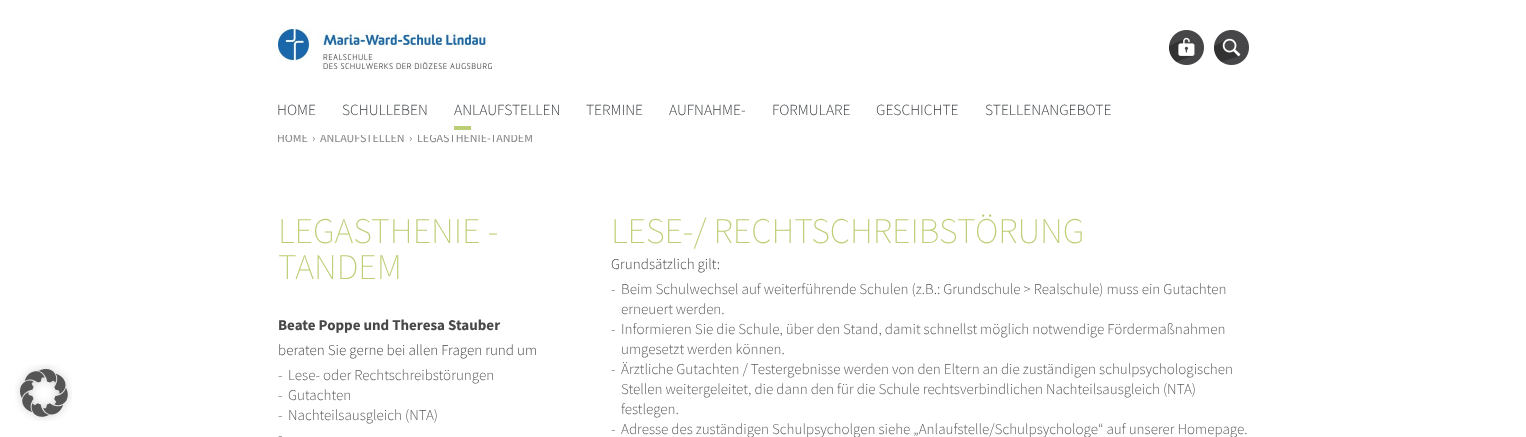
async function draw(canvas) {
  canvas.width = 1526;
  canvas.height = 437;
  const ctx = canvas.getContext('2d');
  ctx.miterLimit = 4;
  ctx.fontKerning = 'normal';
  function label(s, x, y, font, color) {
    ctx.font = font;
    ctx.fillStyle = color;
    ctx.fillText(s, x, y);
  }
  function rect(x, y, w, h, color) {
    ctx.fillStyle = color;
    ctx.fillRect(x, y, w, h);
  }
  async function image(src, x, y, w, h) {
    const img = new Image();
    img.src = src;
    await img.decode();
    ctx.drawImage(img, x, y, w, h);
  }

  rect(0, 0, 1526, 437, '#fff');
  label('HOME', 277, 142, '12px Source Sans Pro', '#858586');
  label('ANLAUFSTELLEN', 320, 142, '12px Source Sans Pro', '#858586');
  label('LEGASTHENIE-TANDEM', 417, 142, '12px Source Sans Pro', '#858586');
  rect(278, 134, 254, 1, '#fff');
  await image('assets/img1.png', 278, 29, 214, 40);
  await image('assets/img2.png', 1169, 30, 35, 35);
  await image('assets/img3.png', 1214, 30, 35, 35);
  label('HOME', 277, 115, '300 15.5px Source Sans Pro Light', '#3a3e42');
  label('SCHULLEBEN', 342, 115, '300 15.5px Source Sans Pro Light', '#3a3e42');
  label('ANLAUFSTELLEN', 454, 115, '300 15.5px Source Sans Pro Light', '#3a3e42');
  rect(454, 126, 17, 4, '#bbce74');
  label('TERMINE', 586, 115, '300 15.5px Source Sans Pro Light', '#3a3e42');
  label('AUFNAHME-', 669, 115, '300 15.5px Source Sans Pro Light', '#3a3e42');
  label('FORMULARE', 772, 115, '300 15.5px Source Sans Pro Light', '#3a3e42');
  label('GESCHICHTE', 876, 115, '300 15.5px Source Sans Pro Light', '#3a3e42');
  label('STELLENANGEBOTE', 985, 115, '300 15.5px Source Sans Pro Light', '#3a3e42');
  await image('assets/img4.png', 15, 364, 57, 57);
  label('›', 312, 142, '12px Source Sans Pro', '#858586');
  label('›', 409, 142, '12px Source Sans Pro', '#858586');
  label('LEGASTHENIE -', 278, 243, '200 36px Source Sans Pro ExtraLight', '#bbce74');
  label('TANDEM', 278, 279, '200 36px Source Sans Pro ExtraLight', '#bbce74');
  label('Beate Poppe und Theresa Stauber', 278, 330, 'bold 15px Source Sans Pro', '#484848');
  label('beraten Sie gerne bei allen Fragen rund um', 278, 355, '300 15px Source Sans Pro Light', '#484848');
  label('-', 278, 380, '300 15px Source Sans Pro Light', '#5a5a5a');
  label('Lese- oder Rechtschreibstörungen', 288, 380, '300 15px Source Sans Pro Light', '#5a5a5a');
  label('-', 278, 400, '300 15px Source Sans Pro Light', '#5a5a5a');
  label('Gutachten', 288, 400, '300 15px Source Sans Pro Light', '#5a5a5a');
  label('-', 278, 420, '300 15px Source Sans Pro Light', '#5a5a5a');
  label('Nachteilsausgleich (NTA)', 288, 420, '300 15px Source Sans Pro Light', '#5a5a5a');
  label('-', 278, 440, '300 15px Source Sans Pro Light', '#5a5a5a');
  label('LESE-/ RECHTSCHREIBSTÖRUNG', 611, 243, '200 36px Source Sans Pro ExtraLight', '#bbce74');
  label('Grundsätzlich gilt:', 611, 269, '300 15px Source Sans Pro Light', '#484848');
  label('-', 611, 294, '300 15px Source Sans Pro Light', '#5a5a5a');
  label('Beim Schulwechsel auf weiterführende Schulen (z.B.: Grundschule > Realschule) muss ein Gutachten', 621, 294, '300 15px Source Sans Pro Light', '#5a5a5a');
  label('erneuert werden.', 621, 314, '300 15px Source Sans Pro Light', '#5a5a5a');
  label('-', 611, 334, '300 15px Source Sans Pro Light', '#5a5a5a');
  label('Informieren Sie die Schule, über den Stand, damit schnellst möglich notwendige Fördermaßnahmen', 621, 334, '300 15px Source Sans Pro Light', '#5a5a5a');
  label('umgesetzt werden können.', 621, 354, '300 15px Source Sans Pro Light', '#5a5a5a');
  label('-', 611, 374, '300 15px Source Sans Pro Light', '#5a5a5a');
  label('Ärztliche Gutachten / Testergebnisse werden von den Eltern an die zuständigen schulpsychologischen', 621, 374, '300 15px Source Sans Pro Light', '#5a5a5a');
  label('Stellen weitergeleitet, die dann den für die Schule rechtsverbindlichen Nachteilsausgleich (NTA)', 621, 394, '300 15px Source Sans Pro Light', '#5a5a5a');
  label('festlegen.', 621, 414, '300 15px Source Sans Pro Light', '#5a5a5a');
  label('-', 611, 434, '300 15px Source Sans Pro Light', '#5a5a5a');
  label('Adresse des zuständigen Schulpsycholgen siehe „Anlaufstelle/Schulpsychologe“ auf unserer Homepage.', 621, 434, '300 15px Source Sans Pro Light', '#5a5a5a');
}

draw(document.querySelector('canvas'));
